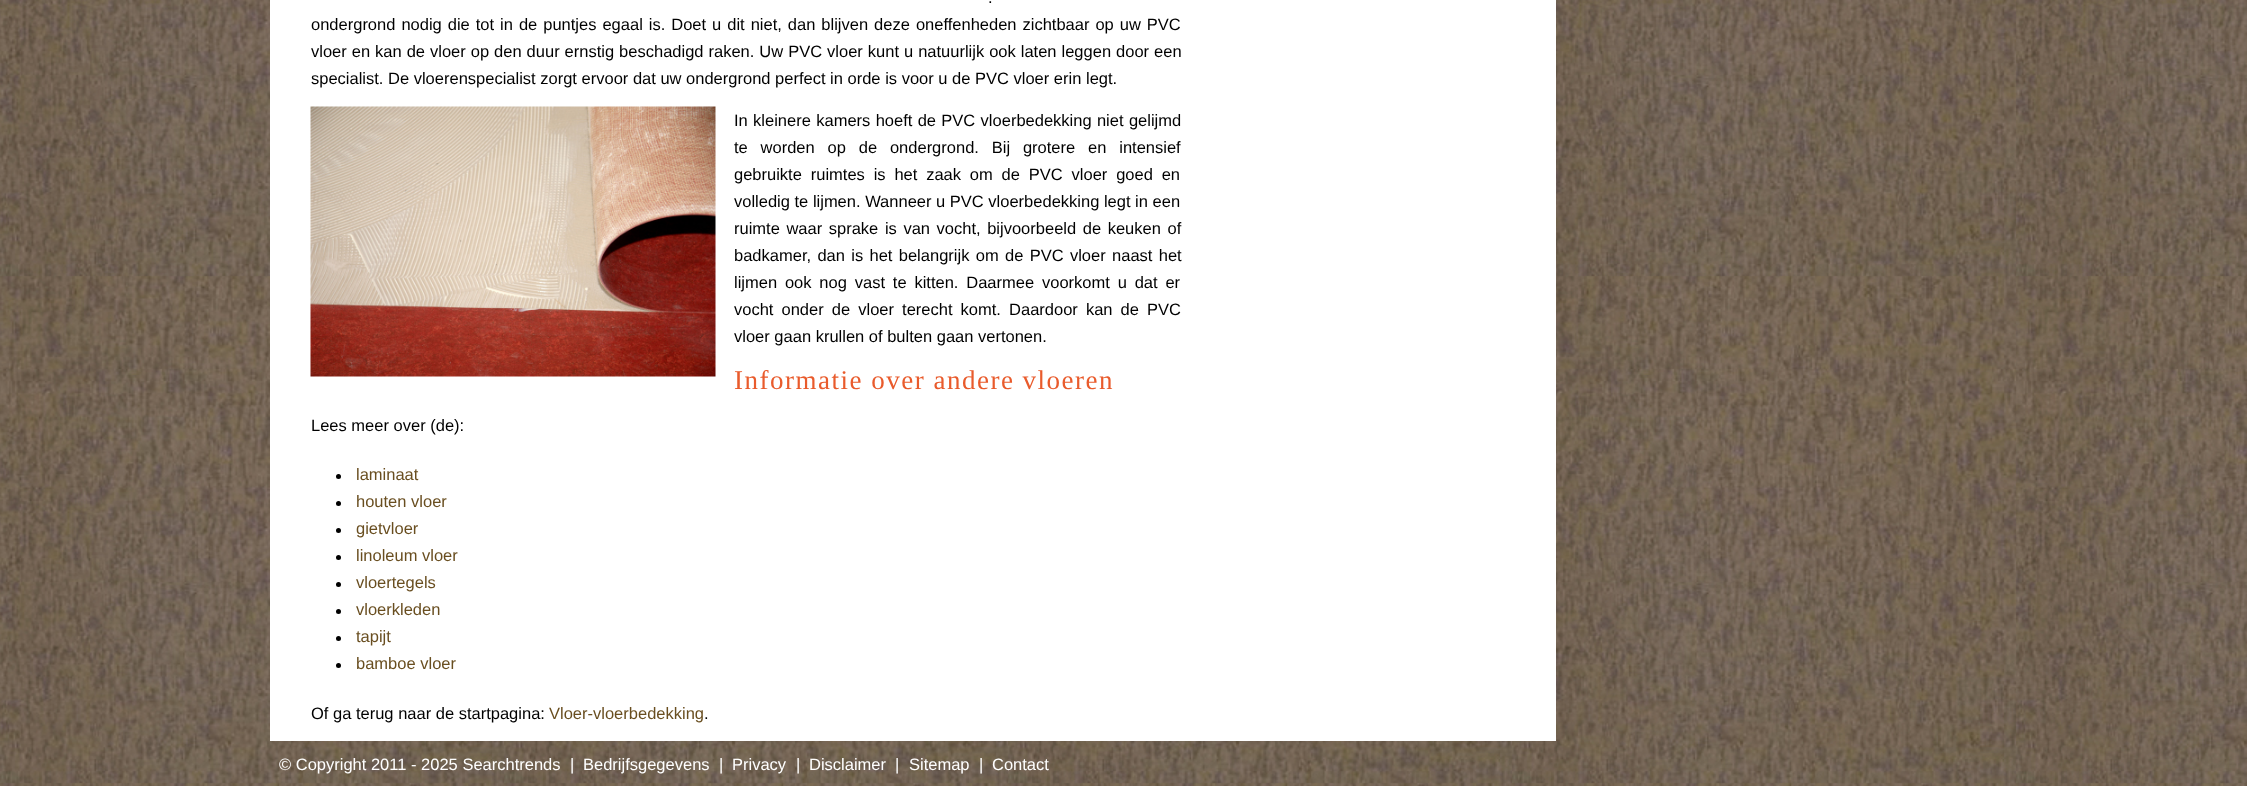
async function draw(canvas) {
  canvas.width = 2247;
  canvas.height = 786;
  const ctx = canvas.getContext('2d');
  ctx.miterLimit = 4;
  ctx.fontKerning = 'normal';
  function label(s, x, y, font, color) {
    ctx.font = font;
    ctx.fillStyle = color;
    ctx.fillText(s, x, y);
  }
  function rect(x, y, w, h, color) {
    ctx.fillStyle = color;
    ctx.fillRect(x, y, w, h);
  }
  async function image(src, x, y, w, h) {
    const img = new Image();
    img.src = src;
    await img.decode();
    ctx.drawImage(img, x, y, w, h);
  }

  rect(0, 0, 2247, 786, '#fff');
  await image('assets/img1.png', 0, 0, 2247, 786);
  rect(270, 0, 1286, 741, '#fff');
  ctx.wordSpacing = '2px';
  label('.', 988, 3, '16.5px Liberation Sans', '#000');
  ctx.wordSpacing = '1.4px';
  label('ondergrond nodig die tot in de puntjes egaal is. Doet u dit niet, dan blijven deze oneffenheden zichtbaar op uw PVC', 311, 30, '16.5px Liberation Sans', '#000');
  ctx.wordSpacing = '0.4px';
  label('vloer en kan de vloer op den duur ernstig beschadigd raken. Uw PVC vloer kunt u natuurlijk ook laten leggen door een', 311, 57, '16.5px Liberation Sans', '#000');
  ctx.wordSpacing = '0px';
  label('specialist. De vloerenspecialist zorgt ervoor dat uw ondergrond perfect in orde is voor u de PVC vloer erin legt.', 311, 84, '16.5px Liberation Sans', '#000');
  await image('assets/img2.png', 310, 106, 406, 271);
  ctx.wordSpacing = '0.75px';
  label('In kleinere kamers hoeft de PVC vloerbedekking niet gelijmd', 734, 126, '16.5px Liberation Sans', '#000');
  ctx.wordSpacing = '8.25px';
  label('te worden op de ondergrond. Bij grotere en intensief', 734, 153, '16.5px Liberation Sans', '#000');
  ctx.wordSpacing = '4.25px';
  label('gebruikte ruimtes is het zaak om de PVC vloer goed en', 734, 180, '16.5px Liberation Sans', '#000');
  ctx.wordSpacing = '0px';
  label('volledig te lijmen. Wanneer u PVC vloerbedekking legt in een', 734, 207, '16.5px Liberation Sans', '#000');
  ctx.wordSpacing = '2px';
  label('ruimte waar sprake is van vocht, bijvoorbeeld de keuken of', 734, 234, '16.5px Liberation Sans', '#000');
  ctx.wordSpacing = '1.75px';
  label('badkamer, dan is het belangrijk om de PVC vloer naast het', 734, 261, '16.5px Liberation Sans', '#000');
  ctx.wordSpacing = '3.25px';
  label('lijmen ook nog vast te kitten. Daarmee voorkomt u dat er', 734, 288, '16.5px Liberation Sans', '#000');
  ctx.wordSpacing = '3.5px';
  label('vocht onder de vloer terecht komt. Daardoor kan de PVC', 734, 315, '16.5px Liberation Sans', '#000');
  ctx.wordSpacing = '0px';
  label('vloer gaan krullen of bulten gaan vertonen.', 734, 342, '16.5px Liberation Sans', '#000');
  ctx.letterSpacing = '1.5px';
  label('Informatie over andere vloeren', 734, 389, '27px Liberation Serif', '#e95b2c');
  ctx.letterSpacing = '0px';
  label('Lees meer over (de):', 311, 431, '16.5px Liberation Sans', '#000');
  ctx.beginPath();
  ctx.arc(338.5, 476.5, 2.5, 0, 2 * Math.PI);
  ctx.fill();
  label('laminaat', 356, 480, '16.5px Liberation Sans', '#694e20');
  ctx.fillStyle = '#000';
  ctx.beginPath();
  ctx.arc(338.5, 503.5, 2.5, 0, 2 * Math.PI);
  ctx.fill();
  label('houten vloer', 356, 507, '16.5px Liberation Sans', '#694e20');
  ctx.fillStyle = '#000';
  ctx.beginPath();
  ctx.arc(338.5, 530.5, 2.5, 0, 2 * Math.PI);
  ctx.fill();
  label('gietvloer', 356, 534, '16.5px Liberation Sans', '#694e20');
  ctx.fillStyle = '#000';
  ctx.beginPath();
  ctx.arc(338.5, 557.5, 2.5, 0, 2 * Math.PI);
  ctx.fill();
  label('linoleum vloer', 356, 561, '16.5px Liberation Sans', '#694e20');
  ctx.fillStyle = '#000';
  ctx.beginPath();
  ctx.arc(338.5, 584.5, 2.5, 0, 2 * Math.PI);
  ctx.fill();
  label('vloertegels', 356, 588, '16.5px Liberation Sans', '#694e20');
  ctx.fillStyle = '#000';
  ctx.beginPath();
  ctx.arc(338.5, 611.5, 2.5, 0, 2 * Math.PI);
  ctx.fill();
  label('vloerkleden', 356, 615, '16.5px Liberation Sans', '#694e20');
  ctx.fillStyle = '#000';
  ctx.beginPath();
  ctx.arc(338.5, 638.5, 2.5, 0, 2 * Math.PI);
  ctx.fill();
  label('tapijt', 356, 642, '16.5px Liberation Sans', '#694e20');
  ctx.fillStyle = '#000';
  ctx.beginPath();
  ctx.arc(338.5, 665.5, 2.5, 0, 2 * Math.PI);
  ctx.fill();
  label('bamboe vloer', 356, 669, '16.5px Liberation Sans', '#694e20');
  label('Of ga terug naar de startpagina:', 311, 719, '16.5px Liberation Sans', '#000');
  label('Vloer-vloerbedekking', 549, 719, '16.5px Liberation Sans', '#694e20');
  label('.', 704, 719, '16.5px Liberation Sans', '#000');
  label('© Copyright 2011 - 2025 Searchtrends', 279, 770, '16.5px Liberation Sans', '#fff');
  label('|', 570, 770, '16.5px Liberation Sans', '#fff');
  label('Bedrijfsgegevens', 583, 770, '16.5px Liberation Sans', '#fff');
  label('|', 719, 770, '16.5px Liberation Sans', '#fff');
  label('Privacy', 732, 770, '16.5px Liberation Sans', '#fff');
  label('|', 796, 770, '16.5px Liberation Sans', '#fff');
  label('Disclaimer', 809, 770, '16.5px Liberation Sans', '#fff');
  label('|', 895, 770, '16.5px Liberation Sans', '#fff');
  label('Sitemap', 909, 770, '16.5px Liberation Sans', '#fff');
  label('|', 979, 770, '16.5px Liberation Sans', '#fff');
  label('Contact', 992, 770, '16.5px Liberation Sans', '#fff');
}

draw(document.querySelector('canvas'));
